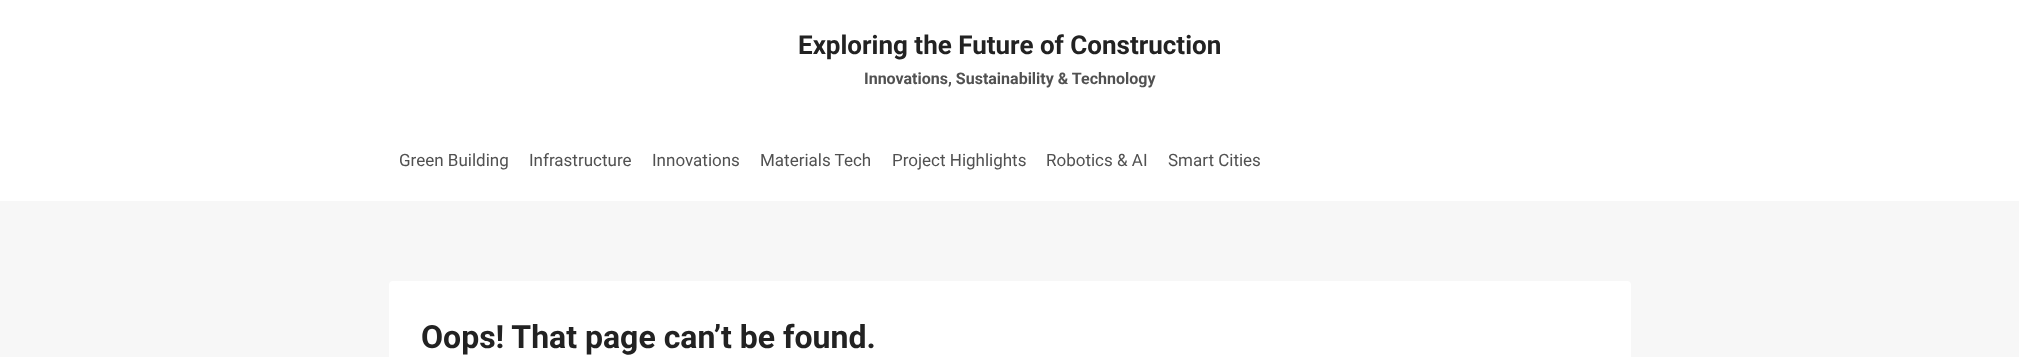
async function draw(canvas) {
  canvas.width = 2019;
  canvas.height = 357;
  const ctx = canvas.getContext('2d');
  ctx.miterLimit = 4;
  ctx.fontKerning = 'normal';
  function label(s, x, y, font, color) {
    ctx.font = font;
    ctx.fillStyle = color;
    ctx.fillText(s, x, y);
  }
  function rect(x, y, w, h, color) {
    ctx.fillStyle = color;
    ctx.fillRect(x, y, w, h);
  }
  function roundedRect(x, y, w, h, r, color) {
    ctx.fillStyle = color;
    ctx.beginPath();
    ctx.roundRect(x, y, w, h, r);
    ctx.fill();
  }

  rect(0, 0, 2019, 357, '#f7f7f7');
  rect(0, 0, 2019, 201, '#fff');
  label('Exploring the Future of Construction', 798, 54, 'bold 26px Roboto', '#222');
  label('Innovations, Sustainability & Technology', 864, 84, 'bold 16px Roboto', '#515151');
  label('Green Building', 399, 166, '17px Roboto', '#515151');
  label('Infrastructure', 529, 166, '17px Roboto', '#515151');
  label('Innovations', 652, 166, '17px Roboto', '#515151');
  label('Materials Tech', 760, 166, '17px Roboto', '#515151');
  label('Project Highlights', 892, 166, '17px Roboto', '#515151');
  label('Robotics & AI', 1046, 166, '17px Roboto', '#515151');
  label('Smart Cities', 1168, 166, '17px Roboto', '#515151');
  roundedRect(389, 281, 1242, 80, 4, '#fff');
  label('Oops! That page can’t be found.', 421, 348, 'bold 32px Roboto', '#222');
}

draw(document.querySelector('canvas'));
